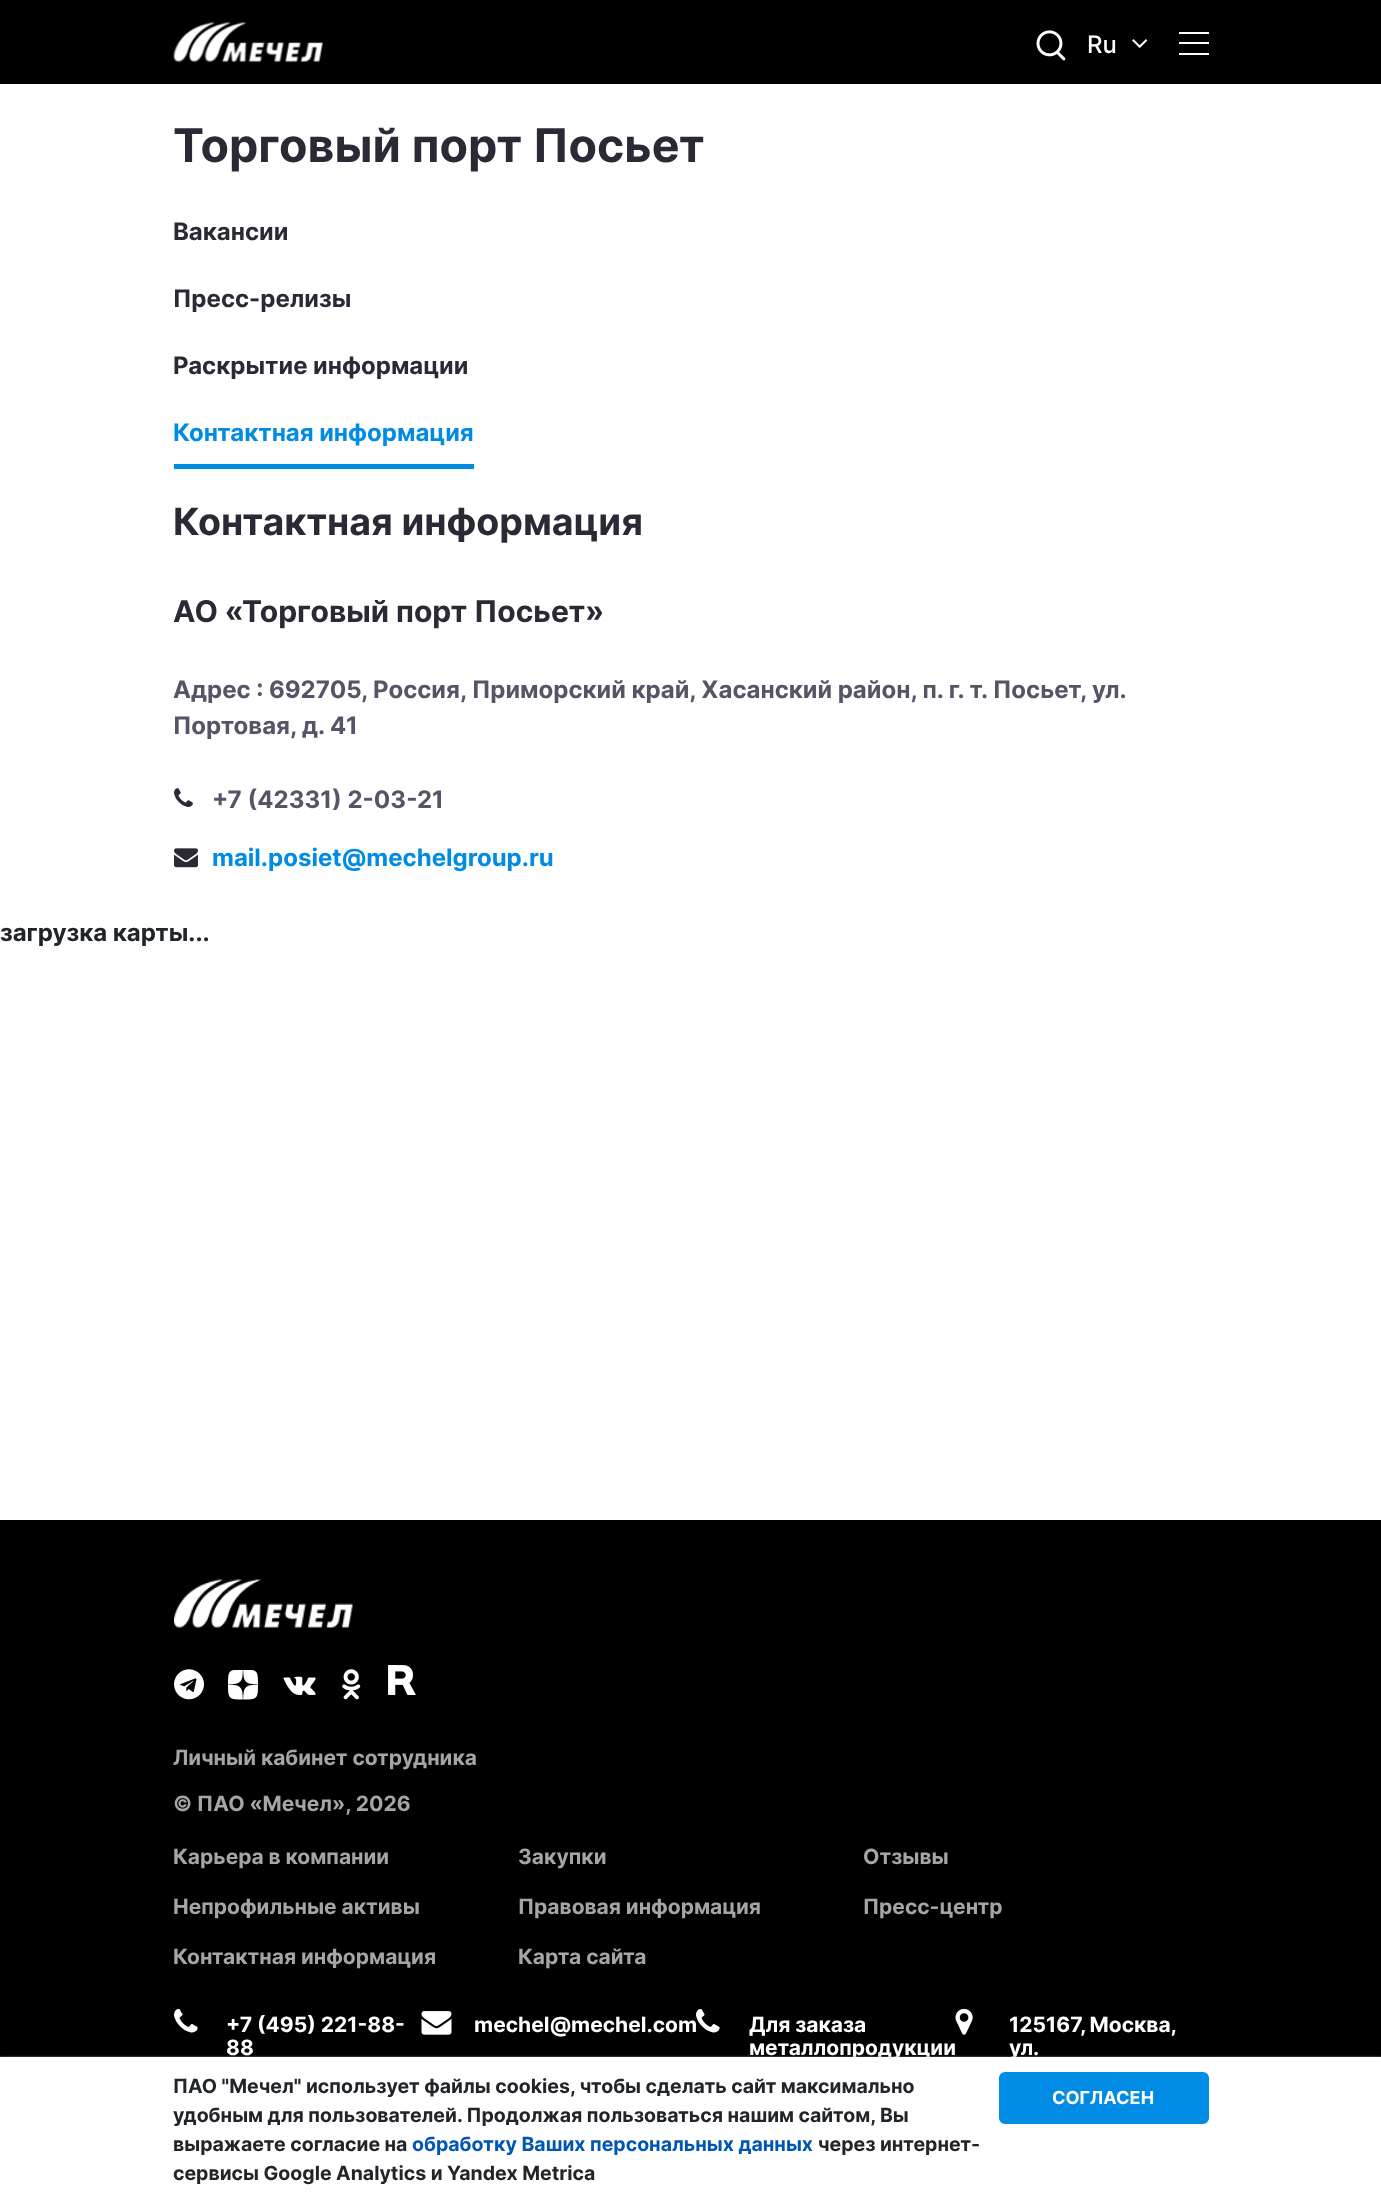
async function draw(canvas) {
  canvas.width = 1381;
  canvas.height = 2203;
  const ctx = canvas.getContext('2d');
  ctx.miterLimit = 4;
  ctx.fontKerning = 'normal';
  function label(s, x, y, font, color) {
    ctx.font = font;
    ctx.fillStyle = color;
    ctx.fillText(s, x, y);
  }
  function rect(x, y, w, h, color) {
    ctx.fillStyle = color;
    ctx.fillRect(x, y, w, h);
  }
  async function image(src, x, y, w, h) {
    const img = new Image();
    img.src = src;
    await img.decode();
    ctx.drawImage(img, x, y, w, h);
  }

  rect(0, 0, 1381, 2203, '#fff');
  rect(0, 0, 1381, 84, '#000');
  await image('assets/img1.png', 173, 22, 150, 41);
  await image('assets/img2.png', 1036, 30, 30, 31);
  label('Ru', 1087, 53, '500 24px Inter', '#fff');
  await image('assets/img3.png', 1132, 39, 16, 9);
  rect(1179, 32, 30, 2, '#fff');
  rect(1179, 53, 30, 2, '#fff');
  rect(1179, 42, 30, 2, '#fff');
  label('Торговый порт Посьет', 173, 162, 'bold 46.5px Inter', '#2a2a36');
  label('Вакансии', 173, 240, 'bold 24px Inter', '#2a2a36');
  label('Пресс-релизы', 173, 307, 'bold 24px Inter', '#2a2a36');
  label('Раскрытие информации', 173, 374, 'bold 24px Inter', '#2a2a36');
  rect(174, 464, 300, 5, '#008ce4');
  label('Контактная информация', 173, 441, 'bold 24px Inter', '#008ce4');
  label('Контактная информация', 173, 535, 'bold 37.5px Inter', '#2a2a36');
  label('АО «Торговый порт Посьет»', 173, 622, 'bold 30px Inter', '#2a2a36');
  label('Адрес : 692705, Россия, Приморский край, Хасанский район, п. г. т. Посьет, ул.', 173, 698, 'bold 24px Inter', '#555567');
  label('Портовая, д. 41', 173, 734, 'bold 24px Inter', '#555567');
  await image('assets/img4.png', 174, 788, 19, 19);
  label('+7 (42331) 2-03-21', 212, 808, 'bold 24px Inter', '#555567');
  await image('assets/img5.png', 174, 848, 24, 20);
  label('mail.posiet@mechelgroup.ru', 212, 866, 'bold 24px Inter', '#008ce4');
  label('загрузка карты...', 0, 941, 'bold 24px Inter', '#212529');
  rect(0, 1520, 1381, 537, '#000');
  await image('assets/img6.png', 174, 1579, 179, 49);
  await image('assets/img7.png', 174, 1669, 30, 31);
  await image('assets/img8.png', 228, 1670, 30, 30);
  await image('assets/img9.png', 283, 1676, 33, 19);
  await image('assets/img10.png', 342, 1669, 19, 31);
  await image('assets/img11.png', 388, 1665, 28, 30);
  label('Личный кабинет сотрудника', 173, 1765, 'bold 21px Inter', '#a5a5a5');
  label('© ПАО «Мечел», 2026', 173, 1811, 'bold 21px Inter', '#a5a5a5');
  label('Карьера в компании', 173, 1864, 'bold 21px Inter', '#a5a5a5');
  label('Непрофильные активы', 173, 1914, 'bold 21px Inter', '#a5a5a5');
  label('Контактная информация', 173, 1964, 'bold 21px Inter', '#a5a5a5');
  label('Закупки', 518, 1864, 'bold 21px Inter', '#a5a5a5');
  label('Правовая информация', 518, 1914, 'bold 21px Inter', '#a5a5a5');
  label('Карта сайта', 518, 1964, 'bold 21px Inter', '#a5a5a5');
  label('Отзывы', 863, 1864, 'bold 21px Inter', '#a5a5a5');
  label('Пресс-центр', 863, 1914, 'bold 21px Inter', '#a5a5a5');
  await image('assets/img12.png', 174, 2009, 24, 24);
  label('+7 (495) 221-88-', 226, 2032, 'bold 21px Inter', '#fff');
  label('88', 226, 2055, 'bold 21px Inter', '#fff');
  await image('assets/img13.png', 421, 2011, 31, 24);
  label('mechel@mechel.com', 474, 2032, 'bold 21px Inter', '#fff');
  await image('assets/img12.png', 696, 2009, 24, 24);
  label('Для заказа', 749, 2032, 'bold 21px Inter', '#fff');
  label('металлопродукции', 749, 2055, 'bold 21px Inter', '#fff');
  await image('assets/img14.png', 955, 2008, 18, 27);
  ctx.wordSpacing = '-1px';
  label('125167, Москва,', 1009, 2032, 'bold 21px Inter', '#fff');
  ctx.wordSpacing = '0px';
  label('ул.', 1009, 2055, 'bold 21px Inter', '#fff');
  ctx.fillStyle = '#808080';
  ctx.filter = 'blur(1px)';
  ctx.beginPath();
  ctx.rect(0, 2057, 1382, 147);
  ctx.fill();
  ctx.filter = 'none';
  rect(0, 2057, 1381, 146, '#fff');
  label('ПАО "Мечел" использует файлы cookies, чтобы сделать сайт максимально', 173, 2093, 'bold 19.5px Inter', '#212529');
  label('удобным для пользователей. Продолжая пользоваться нашим сайтом, Вы', 173, 2122, 'bold 19.5px Inter', '#212529');
  label('выражаете согласие на', 173, 2151, 'bold 19.5px Inter', '#212529');
  label('обработку Ваших персональных данных', 412, 2151, 'bold 19.5px Inter', '#0056b3');
  label('через интернет-', 818, 2151, 'bold 19.5px Inter', '#212529');
  label('сервисы Google Analytics и Yandex Metrica', 173, 2180, 'bold 19.5px Inter', '#212529');
  ctx.fillStyle = '#008ce4';
  ctx.beginPath();
  ctx.roundRect(1000, 2073, 208, 50, 5);
  ctx.fill();
  ctx.strokeStyle = '#008ce4';
  ctx.lineWidth = 2;
  ctx.stroke();
  label('СОГЛАСЕН', 1052, 2104, 'bold 18px Inter', '#fff');
}

draw(document.querySelector('canvas'));
